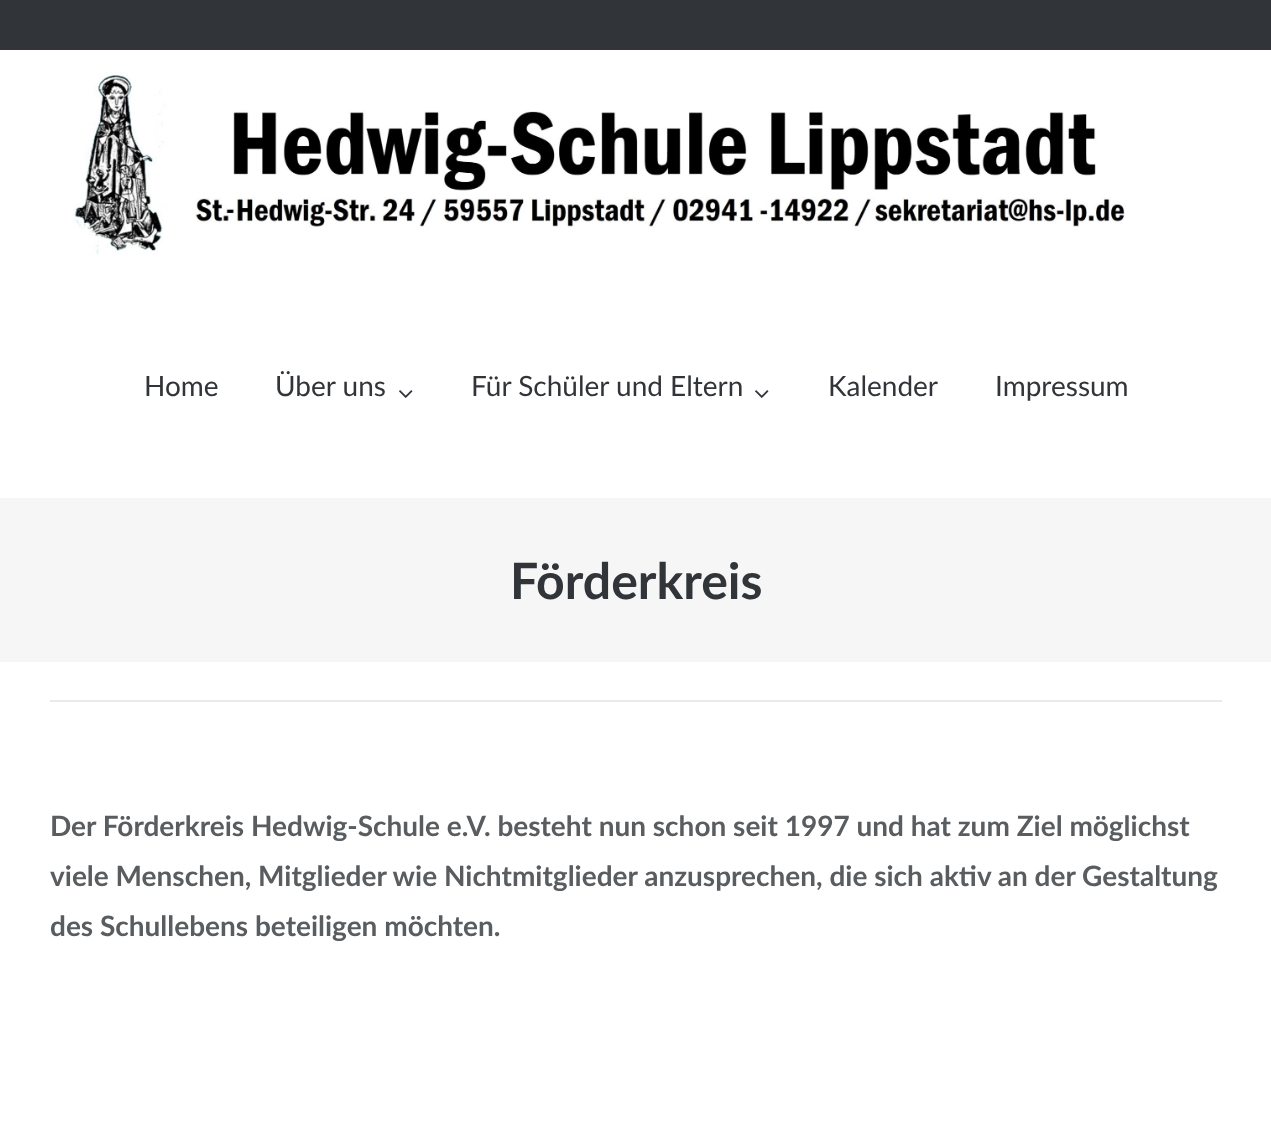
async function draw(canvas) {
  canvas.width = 1271;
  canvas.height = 1126;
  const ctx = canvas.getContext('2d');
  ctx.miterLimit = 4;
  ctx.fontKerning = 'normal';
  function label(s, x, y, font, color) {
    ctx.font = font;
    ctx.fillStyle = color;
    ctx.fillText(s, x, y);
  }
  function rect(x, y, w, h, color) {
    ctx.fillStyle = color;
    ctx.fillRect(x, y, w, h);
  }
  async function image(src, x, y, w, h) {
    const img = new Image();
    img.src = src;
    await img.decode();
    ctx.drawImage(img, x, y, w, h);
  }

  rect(0, 0, 1271, 1126, '#fff');
  rect(0, 0, 1271, 50, '#313539');
  await image('assets/img1.png', 74, 72, 1051, 182);
  label('Home', 144, 396, '28px Lato', '#313539');
  label('Über uns', 275, 396, '28px Lato', '#313539');
  await image('assets/img2.png', 399, 390, 14, 8);
  label('Für Schüler und Eltern', 471, 396, '28px Lato', '#313539');
  await image('assets/img2.png', 755, 390, 14, 8);
  label('Kalender', 828, 396, '28px Lato', '#313539');
  label('Impressum', 995, 396, '28px Lato', '#313539');
  rect(0, 498, 1271, 164, '#f6f6f7');
  label('Förderkreis', 510, 599, 'bold 50px Lato', '#313539');
  rect(50, 700, 1172, 2, '#eaeaeb');
  label('Der Förderkreis Hedwig-Schule e.V. besteht nun schon seit 1997 und hat zum Ziel möglichst', 50, 836, 'bold 28px Lato', '#5a5d60');
  label('viele Menschen, Mitglieder wie Nichtmitglieder anzusprechen, die sich aktiv an der Gestaltung', 50, 886, 'bold 28px Lato', '#5a5d60');
  label('des Schullebens beteiligen möchten.', 50, 936, 'bold 28px Lato', '#5a5d60');
}

draw(document.querySelector('canvas'));
